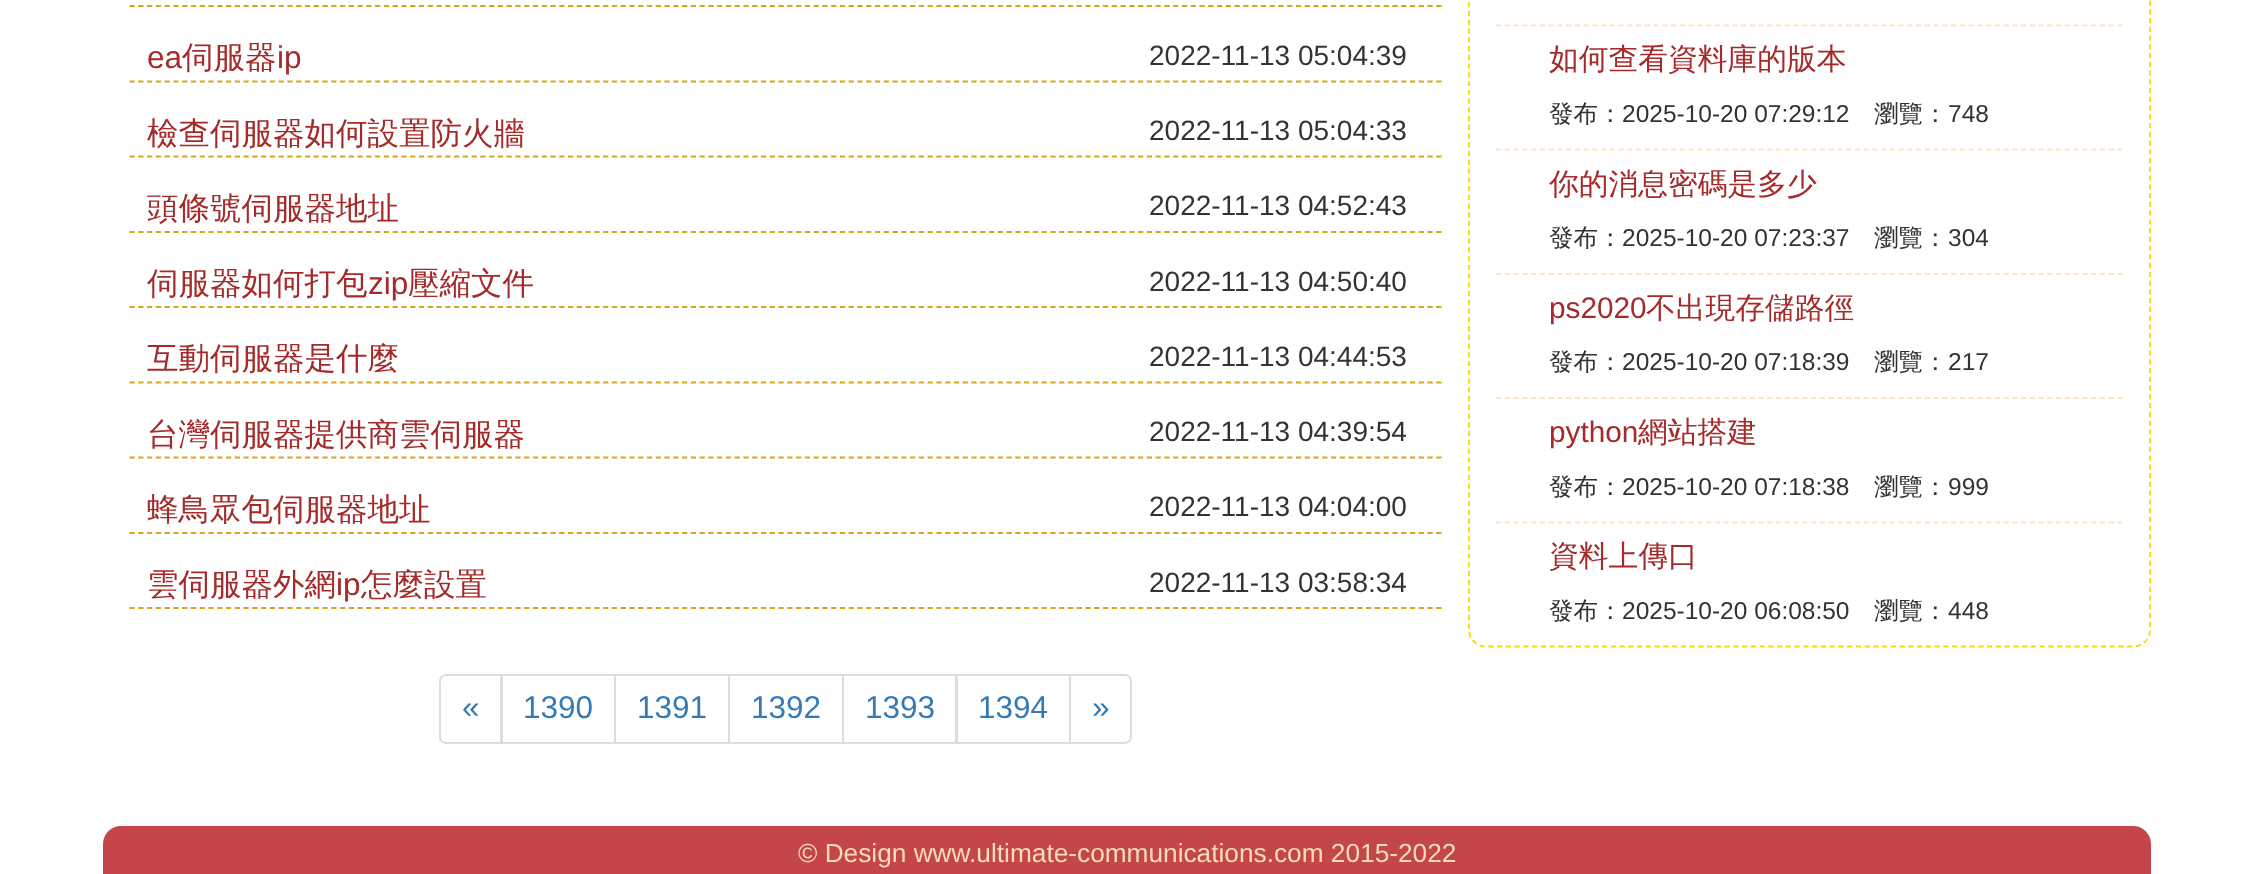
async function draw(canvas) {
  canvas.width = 2253;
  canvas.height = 874;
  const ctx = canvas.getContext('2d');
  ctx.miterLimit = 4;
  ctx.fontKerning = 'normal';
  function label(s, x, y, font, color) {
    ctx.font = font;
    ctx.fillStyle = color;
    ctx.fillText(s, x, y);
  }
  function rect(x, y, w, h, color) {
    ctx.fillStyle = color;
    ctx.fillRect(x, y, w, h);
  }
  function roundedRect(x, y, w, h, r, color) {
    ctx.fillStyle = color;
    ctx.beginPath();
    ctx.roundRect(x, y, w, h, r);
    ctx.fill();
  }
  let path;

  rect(0, 0, 2253, 874, '#fff');
  path = new Path2D('M129.5 6H1442');
  ctx.strokeStyle = '#daa520';
  ctx.lineWidth = 1.8;
  ctx.setLineDash([5.25, 3.52]);
  ctx.stroke(path);
  path = new Path2D('M129.5 81.5H1442');
  ctx.stroke(path);
  label('ea', 147, 68, '31.5px Liberation Sans', '#a52a2a');
  label('伺服器', 182, 68, '500 31.5px WenQuanYi Zen Hei', '#a52a2a');
  label('ip', 277, 68, '31.5px Liberation Sans', '#a52a2a');
  label('2022-11-13 05:04:39', 1149, 65, '28px Liberation Sans', '#333');
  path = new Path2D('M129.5 156.5H1442');
  ctx.stroke(path);
  label('檢查伺服器如何設置防火牆', 147, 144, '500 31.5px WenQuanYi Zen Hei', '#a52a2a');
  label('2022-11-13 05:04:33', 1149, 140, '28px Liberation Sans', '#333');
  path = new Path2D('M129.5 232H1442');
  ctx.stroke(path);
  label('頭條號伺服器地址', 147, 219, '500 31.5px WenQuanYi Zen Hei', '#a52a2a');
  label('2022-11-13 04:52:43', 1149, 215, '28px Liberation Sans', '#333');
  path = new Path2D('M129.5 307H1442');
  ctx.stroke(path);
  label('伺服器如何打包', 147, 294, '500 31.5px WenQuanYi Zen Hei', '#a52a2a');
  label('zip', 368, 294, '31.5px Liberation Sans', '#a52a2a');
  label('壓縮文件', 408, 294, '500 31.5px WenQuanYi Zen Hei', '#a52a2a');
  label('2022-11-13 04:50:40', 1149, 291, '28px Liberation Sans', '#333');
  path = new Path2D('M129.5 382.5H1442');
  ctx.stroke(path);
  label('互動伺服器是什麼', 147, 369, '500 31.5px WenQuanYi Zen Hei', '#a52a2a');
  label('2022-11-13 04:44:53', 1149, 366, '28px Liberation Sans', '#333');
  path = new Path2D('M129.5 457.5H1442');
  ctx.stroke(path);
  label('台灣伺服器提供商雲伺服器', 147, 445, '500 31.5px WenQuanYi Zen Hei', '#a52a2a');
  label('2022-11-13 04:39:54', 1149, 441, '28px Liberation Sans', '#333');
  path = new Path2D('M129.5 533H1442');
  ctx.stroke(path);
  label('蜂鳥眾包伺服器地址', 147, 520, '500 31.5px WenQuanYi Zen Hei', '#a52a2a');
  label('2022-11-13 04:04:00', 1149, 516, '28px Liberation Sans', '#333');
  path = new Path2D('M129.5 608H1442');
  ctx.stroke(path);
  label('雲伺服器外網', 147, 595, '500 31.5px WenQuanYi Zen Hei', '#a52a2a');
  label('ip', 336, 595, '31.5px Liberation Sans', '#a52a2a');
  label('怎麼設置', 361, 595, '500 31.5px WenQuanYi Zen Hei', '#a52a2a');
  label('2022-11-13 03:58:34', 1149, 592, '28px Liberation Sans', '#333');
  ctx.beginPath();
  ctx.roundRect(440, 675, 61, 68, [6, 0, 0, 6]);
  ctx.strokeStyle = '#ddd';
  ctx.lineWidth = 2;
  ctx.setLineDash([]);
  ctx.stroke();
  label('«', 462, 718, '31.5px Liberation Sans', '#337ab7');
  ctx.strokeRect(502, 675, 113, 68);
  label('1390', 523, 718, '31.5px Liberation Sans', '#337ab7');
  ctx.strokeRect(615, 675, 114, 68);
  label('1391', 637, 718, '31.5px Liberation Sans', '#337ab7');
  ctx.strokeRect(729, 675, 114, 68);
  label('1392', 751, 718, '31.5px Liberation Sans', '#337ab7');
  ctx.strokeRect(843, 675, 113, 68);
  label('1393', 865, 718, '31.5px Liberation Sans', '#337ab7');
  ctx.strokeRect(957, 675, 113, 68);
  label('1394', 978, 718, '31.5px Liberation Sans', '#337ab7');
  ctx.fillStyle = '#fff';
  ctx.beginPath();
  ctx.roundRect(1070, 675, 61, 68, [0, 6, 6, 0]);
  ctx.fill();
  ctx.stroke();
  label('»', 1092, 718, '31.5px Liberation Sans', '#337ab7');
  path = new Path2D('M1486-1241.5H2133C2142.5-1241.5 2150-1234 2150-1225V630C2150 639 2142.5 646.5 2133 646.5H1486C1476.5 646.5 1469 639 1469 630V-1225C1469-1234 1476.5-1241.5 1486-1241.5Z');
  ctx.strokeStyle = '#ffd700';
  ctx.lineWidth = 1.8;
  ctx.setLineDash([5.25, 3.5]);
  ctx.stroke(path);
  path = new Path2D('M1496 25.5H2123');
  ctx.strokeStyle = '#ffe4c4';
  ctx.stroke(path);
  path = new Path2D('M1496 149.5H2123');
  ctx.stroke(path);
  label('如何查看資料庫的版本', 1549, 69, '500 29.75px WenQuanYi Zen Hei', '#a52a2a');
  label('發布：', 1549, 122, '500 24.5px WenQuanYi Zen Hei', '#333');
  label('2025-10-20 07:29:12', 1622, 122, '24.5px Liberation Sans', '#333');
  label('瀏覽：', 1874, 122, '500 24.5px WenQuanYi Zen Hei', '#333');
  label('748', 1948, 122, '24.5px Liberation Sans', '#333');
  path = new Path2D('M1496 274H2123');
  ctx.stroke(path);
  label('你的消息密碼是多少', 1549, 194, '500 29.75px WenQuanYi Zen Hei', '#a52a2a');
  label('發布：', 1549, 246, '500 24.5px WenQuanYi Zen Hei', '#333');
  label('2025-10-20 07:23:37', 1622, 246, '24.5px Liberation Sans', '#333');
  label('瀏覽：', 1874, 246, '500 24.5px WenQuanYi Zen Hei', '#333');
  label('304', 1948, 246, '24.5px Liberation Sans', '#333');
  path = new Path2D('M1496 398H2123');
  ctx.stroke(path);
  label('ps2020', 1549, 318, '29.75px Liberation Sans', '#a52a2a');
  label('不出現存儲路徑', 1646, 318, '500 29.75px WenQuanYi Zen Hei', '#a52a2a');
  label('發布：', 1549, 370, '500 24.5px WenQuanYi Zen Hei', '#333');
  label('2025-10-20 07:18:39', 1622, 370, '24.5px Liberation Sans', '#333');
  label('瀏覽：', 1874, 370, '500 24.5px WenQuanYi Zen Hei', '#333');
  label('217', 1948, 370, '24.5px Liberation Sans', '#333');
  path = new Path2D('M1496 522.5H2123');
  ctx.stroke(path);
  label('python', 1549, 442, '29.75px Liberation Sans', '#a52a2a');
  label('網站搭建', 1638, 442, '500 29.75px WenQuanYi Zen Hei', '#a52a2a');
  label('發布：', 1549, 495, '500 24.5px WenQuanYi Zen Hei', '#333');
  label('2025-10-20 07:18:38', 1622, 495, '24.5px Liberation Sans', '#333');
  label('瀏覽：', 1874, 495, '500 24.5px WenQuanYi Zen Hei', '#333');
  label('999', 1948, 495, '24.5px Liberation Sans', '#333');
  label('資料上傳口', 1549, 566, '500 29.75px WenQuanYi Zen Hei', '#a52a2a');
  label('發布：', 1549, 619, '500 24.5px WenQuanYi Zen Hei', '#333');
  label('2025-10-20 06:08:50', 1622, 619, '24.5px Liberation Sans', '#333');
  label('瀏覽：', 1874, 619, '500 24.5px WenQuanYi Zen Hei', '#333');
  label('448', 1948, 619, '24.5px Liberation Sans', '#333');
  roundedRect(103, 826, 2048, 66, 18, '#c5464a');
  label('© Design www.ultimate-communications.com 2015-2022', 798, 862, '26.25px Liberation Sans', '#f5deb3');
}

draw(document.querySelector('canvas'));
